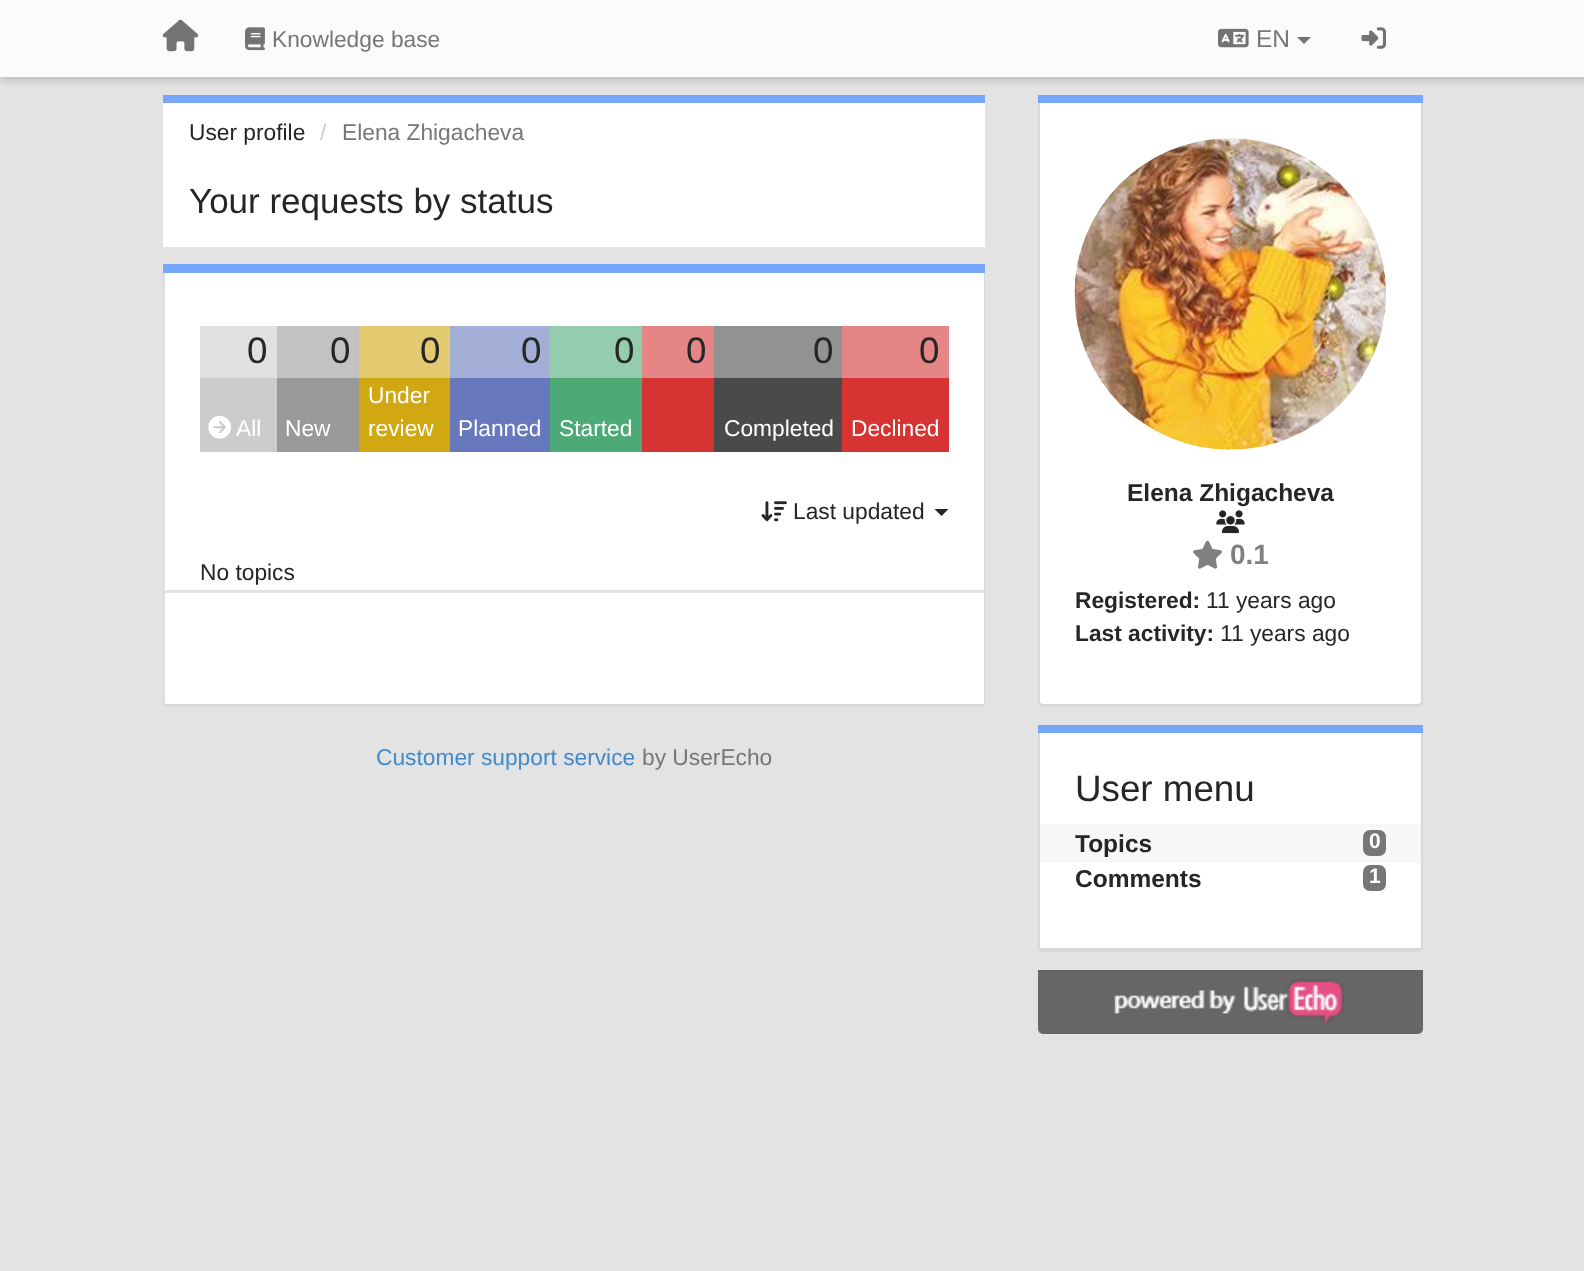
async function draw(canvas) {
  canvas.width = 1584;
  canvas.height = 1271;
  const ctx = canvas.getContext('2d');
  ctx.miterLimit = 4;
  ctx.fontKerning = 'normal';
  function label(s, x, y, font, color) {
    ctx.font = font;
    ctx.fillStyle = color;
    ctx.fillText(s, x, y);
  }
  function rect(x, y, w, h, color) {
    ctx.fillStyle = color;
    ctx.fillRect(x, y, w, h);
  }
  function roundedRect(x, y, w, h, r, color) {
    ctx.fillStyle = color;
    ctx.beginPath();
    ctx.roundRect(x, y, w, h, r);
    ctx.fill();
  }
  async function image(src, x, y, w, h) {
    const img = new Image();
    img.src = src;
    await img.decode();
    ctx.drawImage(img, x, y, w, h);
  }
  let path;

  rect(0, 0, 1584, 1271, '#e3e3e3');
  ctx.fillStyle = '#00000026';
  ctx.filter = 'blur(3.5px)';
  ctx.beginPath();
  ctx.rect(0, 4, 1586, 77);
  ctx.fill();
  ctx.filter = 'none';
  rect(0, 0, 1584, 77, '#fbfbfb');
  await image('assets/img1.png', 162, 19, 37, 33);
  await image('assets/img2.png', 245, 27, 20, 24);
  label('Knowledge base', 272, 47, '22.75px Liberation Sans', '#777');
  await image('assets/img3.png', 1218, 28, 31, 20);
  label('EN', 1256, 47, '24.5px Liberation Sans', '#777');
  ctx.fillStyle = '#737373';
  path = new Path2D('M1297 37H1311L1304 44Z');
  ctx.fill(path);
  await image('assets/img4.png', 1361, 27, 25, 22);
  rect(163, 103, 822, 144, '#fff');
  rect(163, 95, 822, 8, '#76a7fa');
  label('User profile', 189, 140, '22.75px Liberation Sans', '#262626');
  label('/', 320, 140, '22.75px Liberation Sans', '#ccc');
  label('Elena Zhigacheva', 342, 140, '22.75px Liberation Sans', '#777');
  label('Your requests by status', 189, 213, '35px Liberation Sans', '#262626');
  rect(163, 264, 822, 9, '#76a7fa');
  ctx.fillStyle = '#d8d8d8';
  path = new Path2D('M163 273H985V702C985 705 983 707 980 707H168C165 707 163 705 163 702ZM164 273H984V702C984 703 982 704 980 704H168C166 704 164 703 164 702Z');
  ctx.fill(path, 'evenodd');
  rect(165, 273, 819, 317, '#fff');
  rect(200, 326, 77, 52, '#e0e0e0');
  label('0', 247, 363, '36.75px Liberation Sans', '#262626');
  rect(277, 326, 82, 52, '#c2c2c2');
  label('0', 330, 363, '36.75px Liberation Sans', '#262626');
  rect(359, 326, 91, 52, '#e3ca71');
  label('0', 420, 363, '36.75px Liberation Sans', '#262626');
  rect(450, 326, 100, 52, '#a4afd7');
  label('0', 521, 363, '36.75px Liberation Sans', '#262626');
  rect(550, 326, 92, 52, '#94ccad');
  label('0', 614, 363, '36.75px Liberation Sans', '#262626');
  rect(642, 326, 72, 52, '#e68585');
  label('0', 686, 363, '36.75px Liberation Sans', '#262626');
  rect(714, 326, 128, 52, '#929292');
  label('0', 813, 363, '36.75px Liberation Sans', '#262626');
  rect(842, 326, 107, 52, '#e68585');
  label('0', 919, 363, '36.75px Liberation Sans', '#262626');
  rect(200, 378, 77, 74, '#ccc');
  await image('assets/img5.png', 208, 415, 23, 24);
  label('All', 236, 436, '22.75px Liberation Sans', '#fff');
  rect(277, 378, 82, 74, '#999');
  label('New', 285, 436, '22.75px Liberation Sans', '#fff');
  rect(359, 378, 91, 74, '#d1a712');
  label('Under', 368, 403, '22.75px Liberation Sans', '#fff');
  label('review', 368, 436, '22.75px Liberation Sans', '#fff');
  rect(450, 378, 100, 74, '#6779bc');
  label('Planned', 458, 436, '22.75px Liberation Sans', '#fff');
  rect(550, 378, 92, 74, '#4daa77');
  label('Started', 559, 436, '22.75px Liberation Sans', '#fff');
  rect(642, 378, 72, 74, '#d63333');
  rect(714, 378, 128, 74, '#4a4a4a');
  label('Completed', 724, 436, '22.75px Liberation Sans', '#fff');
  rect(842, 378, 107, 74, '#d63333');
  label('Declined', 851, 436, '22.75px Liberation Sans', '#fff');
  await image('assets/img6.png', 761, 501, 26, 21);
  label('Last updated', 793, 519, '22.75px Liberation Sans', '#262626');
  path = new Path2D('M934.5 509H948.5L941.5 516Z');
  ctx.fill(path);
  label('No topics', 200, 580, '22.75px Liberation Sans', '#262626');
  rect(165, 593, 819, 111, '#fff');
  label('Customer support service', 376, 765, '22.75px Liberation Sans', '#428bca');
  label('by UserEcho', 642, 765, '22.75px Liberation Sans', '#777');
  rect(1038, 95, 385, 8, '#76a7fa');
  ctx.fillStyle = '#fff';
  path = new Path2D('M1040 103H1421V702C1421 703 1419 704 1418 704H1043C1041 704 1040 703 1040 702Z');
  ctx.fill(path);
  ctx.fillStyle = '#d8d8d8';
  path = new Path2D('M1038 103H1423V702C1423 705 1420 707 1418 707H1043C1040 707 1038 705 1038 702ZM1040 103H1421V702C1421 703 1419 704 1418 704H1043C1041 704 1040 703 1040 702Z');
  ctx.fill(path, 'evenodd');
  await image('assets/img7.png', 1074, 138, 312, 312);
  label('Elena Zhigacheva', 1127, 501, 'bold 24.5px Liberation Sans', '#262626');
  await image('assets/img8.png', 1216, 510, 29, 24);
  await image('assets/img9.png', 1193, 540, 29, 29);
  label('0.1', 1230, 564, 'bold 28px Liberation Sans', '#808080');
  label('Registered:', 1075, 608, 'bold 22.75px Liberation Sans', '#262626');
  label('11 years ago', 1206, 608, '22.75px Liberation Sans', '#262626');
  label('Last activity:', 1075, 641, 'bold 22.75px Liberation Sans', '#262626');
  label('11 years ago', 1220, 641, '22.75px Liberation Sans', '#262626');
  rect(1038, 725, 385, 8, '#76a7fa');
  ctx.fillStyle = '#fff';
  path = new Path2D('M1040 733H1421V947C1421 948 1419 948 1418 948H1043C1041 948 1040 948 1040 947Z');
  ctx.fill(path);
  ctx.fillStyle = '#d8d8d8';
  path = new Path2D('M1038 733H1423V947C1423 950 1420 952 1418 952H1043C1040 952 1038 950 1038 947ZM1040 733H1421V947C1421 948 1419 948 1418 948H1043C1041 948 1040 948 1040 947Z');
  ctx.fill(path, 'evenodd');
  label('User menu', 1075, 801, '36.75px Liberation Sans', '#262626');
  rect(1040, 824, 381, 39, '#f7f7f7');
  label('Topics', 1075, 852, 'bold 24.5px Liberation Sans', '#262626');
  roundedRect(1363, 830, 23, 26, 7, '#777');
  label('0', 1369, 848, 'bold 21px Liberation Sans', '#fff');
  label('Comments', 1075, 887, 'bold 24.5px Liberation Sans', '#262626');
  roundedRect(1363, 865, 23, 26, 7, '#777');
  label('1', 1369, 883, 'bold 21px Liberation Sans', '#fff');
  ctx.fillStyle = '#666';
  ctx.beginPath();
  ctx.roundRect(1038, 970, 385, 64, [0, 0, 5, 5]);
  ctx.fill();
  await image('assets/img10.png', 1114, 979, 230, 45);
}

draw(document.querySelector('canvas'));
